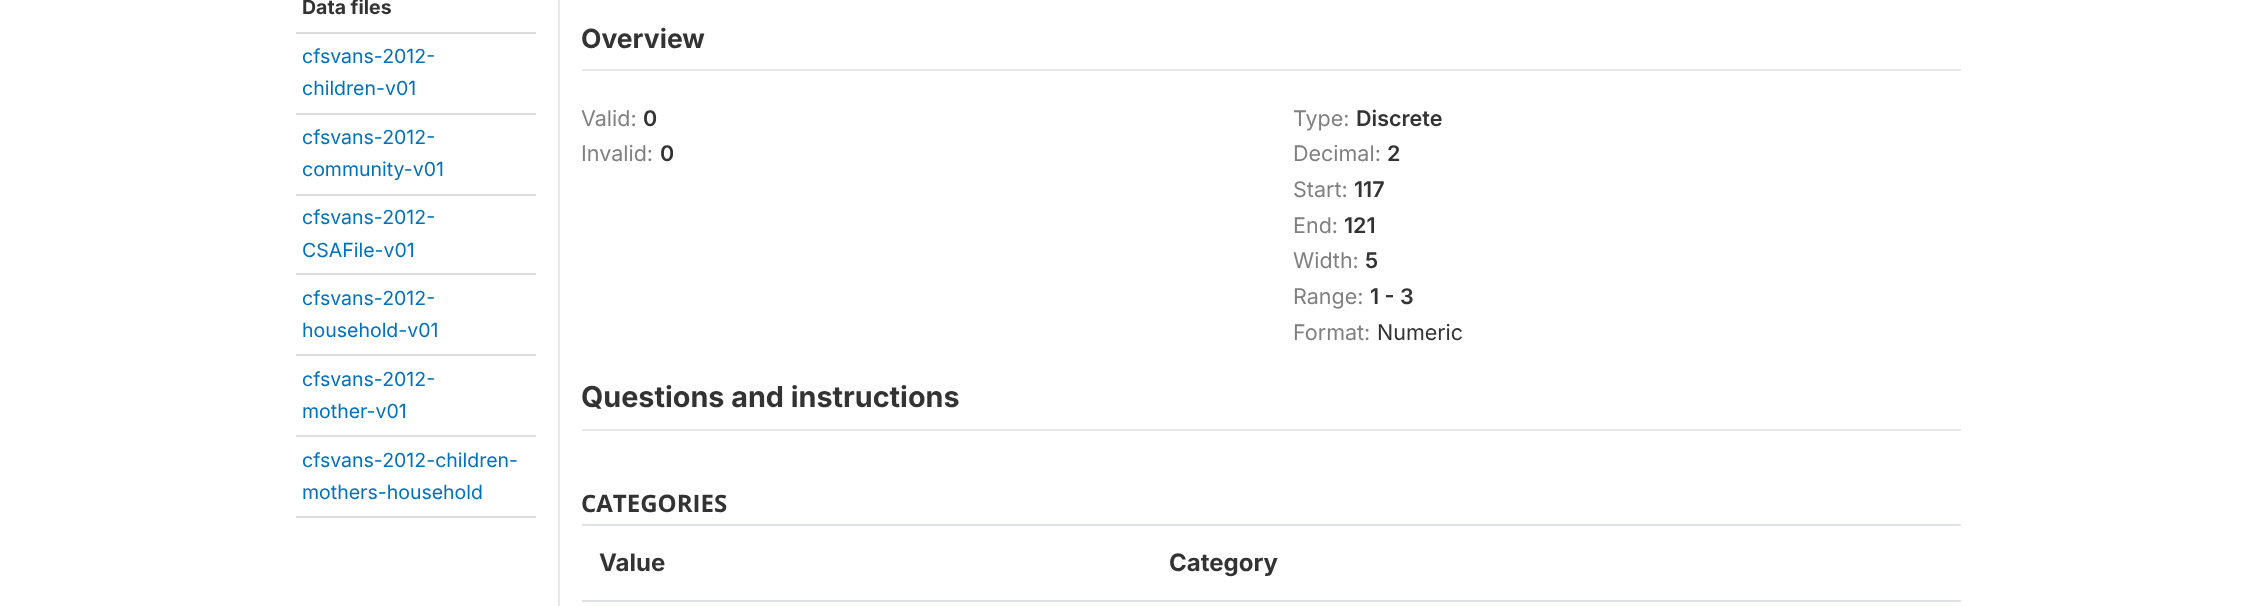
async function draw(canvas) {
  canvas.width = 2254;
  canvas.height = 606;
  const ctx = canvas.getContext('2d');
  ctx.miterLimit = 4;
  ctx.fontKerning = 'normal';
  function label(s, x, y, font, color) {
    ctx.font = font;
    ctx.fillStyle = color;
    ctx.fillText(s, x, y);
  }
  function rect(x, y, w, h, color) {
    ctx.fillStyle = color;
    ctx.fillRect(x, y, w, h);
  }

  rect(0, 0, 2254, 606, '#fff');
  label('Data files', 302, 14, 'bold 19.5px Inter', '#333');
  rect(296, 32, 240, 2, '#ddd');
  label('cfsvans-2012-', 302, 63, '19.5px Inter', '#0071bd');
  label('children-v01', 302, 95, '19.5px Inter', '#0071bd');
  rect(296, 113, 240, 2, '#ddd');
  label('cfsvans-2012-', 302, 144, '19.5px Inter', '#0071bd');
  label('community-v01', 302, 176, '19.5px Inter', '#0071bd');
  rect(296, 194, 240, 2, '#ddd');
  label('cfsvans-2012-', 302, 224, '19.5px Inter', '#0071bd');
  label('CSAFile-v01', 302, 257, '19.5px Inter', '#0071bd');
  rect(296, 273, 240, 2, '#ddd');
  label('cfsvans-2012-', 302, 305, '19.5px Inter', '#0071bd');
  label('household-v01', 302, 337, '19.5px Inter', '#0071bd');
  rect(296, 354, 240, 2, '#ddd');
  label('cfsvans-2012-', 302, 386, '19.5px Inter', '#0071bd');
  label('mother-v01', 302, 418, '19.5px Inter', '#0071bd');
  rect(296, 435, 240, 2, '#ddd');
  rect(296, 516, 240, 2, '#dcdcdc');
  label('cfsvans-2012-children-', 302, 467, '19.5px Inter', '#0071bd');
  label('mothers-household', 302, 499, '19.5px Inter', '#0071bd');
  rect(558, 0, 2, 606, '#e8e8e8');
  rect(582, 69, 1379, 2, '#e8e8e8');
  label('Overview', 581, 48, 'bold 26.5px Inter', '#333');
  label('Valid:', 581, 126, '21.5px Inter', '#808080');
  label('0', 643, 126, '600 21.5px Inter', '#333');
  label('Invalid:', 581, 161, '21.5px Inter', '#808080');
  label('0', 660, 161, '600 21.5px Inter', '#333');
  label('Type:', 1293, 126, '21.5px Inter', '#808080');
  label('Discrete', 1356, 126, '600 21.5px Inter', '#333');
  label('Decimal:', 1293, 161, '21.5px Inter', '#808080');
  label('2', 1387, 161, '600 21.5px Inter', '#333');
  label('Start:', 1293, 197, '21.5px Inter', '#808080');
  label('117', 1354, 197, '600 21.5px Inter', '#333');
  label('End:', 1293, 233, '21.5px Inter', '#808080');
  label('121', 1344, 233, '600 21.5px Inter', '#333');
  label('Width:', 1293, 268, '21.5px Inter', '#808080');
  label('5', 1365, 268, '600 21.5px Inter', '#333');
  label('Range:', 1293, 304, '21.5px Inter', '#808080');
  label('1 - 3', 1370, 304, '600 21.5px Inter', '#333');
  label('Format:', 1293, 340, '21.5px Inter', '#808080');
  label('Numeric', 1377, 340, '21.5px Inter', '#333');
  rect(582, 429, 1379, 2, '#e8e8e8');
  label('Questions and instructions', 581, 407, 'bold 28.75px Inter', '#333');
  label('CATEGORIES', 581, 512, 'bold 24px Open Sans', '#333');
  label('Value', 599, 571, 'bold 24px Inter', '#333');
  rect(582, 524, 1379, 2, '#dee2e6');
  label('Category', 1169, 571, 'bold 24px Inter', '#333');
  rect(582, 600, 1379, 2, '#dee2e6');
}

draw(document.querySelector('canvas'));
